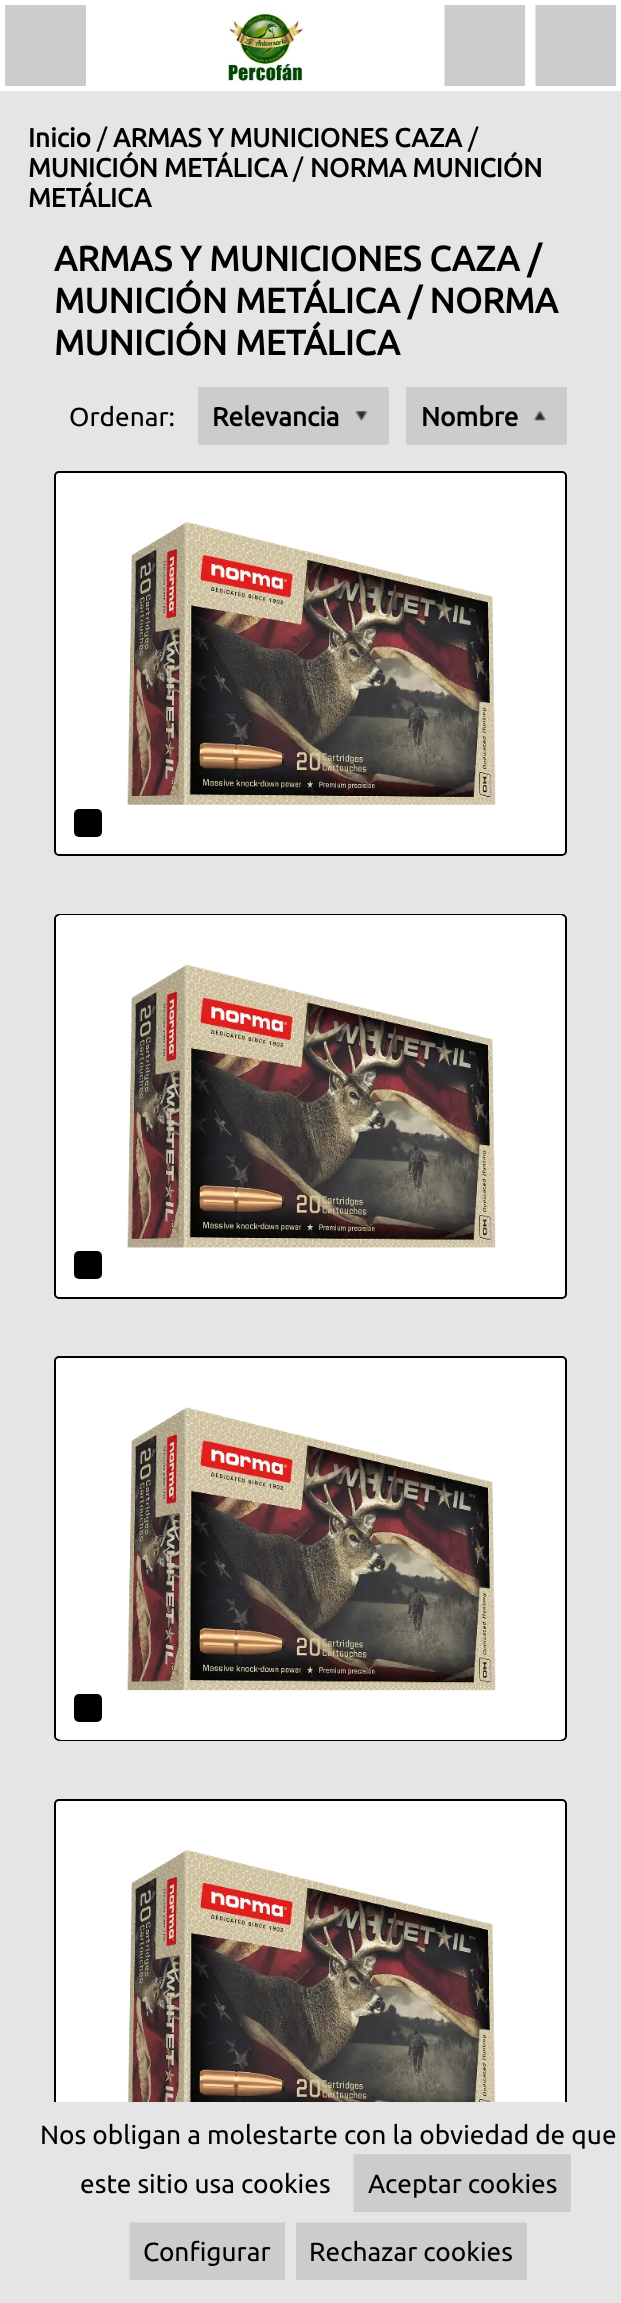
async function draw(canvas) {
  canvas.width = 621;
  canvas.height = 2303;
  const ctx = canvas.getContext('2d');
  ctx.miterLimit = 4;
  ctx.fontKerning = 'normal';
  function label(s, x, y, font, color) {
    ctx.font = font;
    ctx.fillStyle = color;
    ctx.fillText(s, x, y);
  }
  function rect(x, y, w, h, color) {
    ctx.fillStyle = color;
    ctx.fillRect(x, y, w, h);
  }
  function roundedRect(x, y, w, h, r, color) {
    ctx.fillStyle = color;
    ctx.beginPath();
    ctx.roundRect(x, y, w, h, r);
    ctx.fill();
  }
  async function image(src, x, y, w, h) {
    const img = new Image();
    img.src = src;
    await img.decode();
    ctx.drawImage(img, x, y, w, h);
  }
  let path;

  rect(0, 0, 621, 2303, '#e5e5e5');
  rect(0, 0, 621, 91, '#fff');
  rect(19, 19, 53, 53, '#ccc');
  path = new Path2D('M12 12H79V79H12Z');
  ctx.strokeStyle = '#ccc';
  ctx.lineWidth = 14;
  ctx.stroke(path);
  await image('assets/img1.png', 225, 11, 80, 73);
  rect(458, 19, 53, 53, '#ccc');
  path = new Path2D('M451.5 12H518V79H451.5Z');
  ctx.stroke(path);
  rect(549, 19, 53, 53, '#ccc');
  path = new Path2D('M542.5 12H609V79H542.5Z');
  ctx.stroke(path);
  label('Inicio', 28, 147, 'bold 26.25px Ubuntu', '#000');
  label('/', 97, 147, '26.25px Ubuntu', '#000');
  label('ARMAS Y MUNICIONES CAZA', 113, 147, 'bold 26.25px Ubuntu', '#000');
  label('/', 468, 147, '26.25px Ubuntu', '#000');
  label('MUNICIÓN METÁLICA', 28, 177, 'bold 26.25px Ubuntu', '#000');
  label('/', 293, 177, '26.25px Ubuntu', '#000');
  label('NORMA MUNICIÓN', 310, 177, 'bold 26.25px Ubuntu', '#000');
  label('METÁLICA', 28, 207, 'bold 26.25px Ubuntu', '#000');
  label('ARMAS Y MUNICIONES CAZA /', 54, 271, 'bold 35px Ubuntu', '#000');
  label('MUNICIÓN METÁLICA / NORMA', 54, 313, 'bold 35px Ubuntu', '#000');
  label('MUNICIÓN METÁLICA', 54, 355, 'bold 35px Ubuntu', '#000');
  label('Ordenar:', 69, 426, '26.25px Ubuntu', '#000');
  roundedRect(198, 387, 191, 58, 5, '#ccc');
  await image('assets/img2.png', 355, 410, 13, 11);
  path = new Path2D('M205 394H381.5V437.5H205Z');
  ctx.stroke(path);
  label('Relevancia', 212, 426, 'bold 26.25px Ubuntu', '#000');
  roundedRect(406, 387, 161, 58, 5, '#ccc');
  await image('assets/img3.png', 533, 410, 14, 11);
  path = new Path2D('M413 394H560V437.5H413Z');
  ctx.stroke(path);
  label('Nombre', 421, 426, 'bold 26.25px Ubuntu', '#000');
  ctx.fillStyle = '#fff';
  ctx.beginPath();
  ctx.roundRect(55, 472, 511, 383, 4);
  ctx.fill();
  ctx.strokeStyle = '#000';
  ctx.lineWidth = 2;
  ctx.stroke();
  roundedRect(56, 473, 509, 381, 5, '#fff');
  await image('assets/img4.png', 127, 521, 369, 284);
  roundedRect(74, 809, 28, 28, 5, '#000');
  ctx.fillStyle = '#fff';
  ctx.beginPath();
  ctx.roundRect(55, 915, 511, 383, 4);
  ctx.fill();
  ctx.stroke();
  roundedRect(56, 915, 509, 382, 5, '#fff');
  await image('assets/img5.png', 127, 964, 369, 284);
  roundedRect(74, 1251, 28, 28, 5, '#000');
  ctx.fillStyle = '#fff';
  ctx.beginPath();
  ctx.roundRect(55, 1357, 511, 383, 4);
  ctx.fill();
  ctx.stroke();
  roundedRect(56, 1358, 509, 382, 5, '#fff');
  await image('assets/img6.png', 127, 1407, 369, 284);
  roundedRect(74, 1694, 28, 28, 5, '#000');
  ctx.fillStyle = '#fff';
  ctx.beginPath();
  ctx.roundRect(55, 1800, 511, 381, 4);
  ctx.fill();
  ctx.stroke();
  roundedRect(56, 1801, 509, 380, 5, '#fff');
  await image('assets/img7.png', 127, 1850, 369, 252);
  rect(54, 2102, 513, 80, '#e5e5e5');
  label('Nos obligan a molestarte con la obviedad de que', 40, 2144, '26.25px Ubuntu', '#000');
  label('este sitio usa cookies', 80, 2193, '26.25px Ubuntu', '#000');
  roundedRect(354, 2154, 217, 58, 5, '#ccc');
  path = new Path2D('M360.5 2161H563.5V2205H360.5Z');
  ctx.strokeStyle = '#ccc';
  ctx.lineWidth = 14;
  ctx.stroke(path);
  label('Aceptar cookies', 368, 2193, '26.25px Ubuntu', '#000');
  rect(143, 2236, 128, 30, '#ccc');
  path = new Path2D('M136.5 2229.5H278V2273H136.5Z');
  ctx.stroke(path);
  label('Configurar', 143, 2261, '26.25px Ubuntu', '#000');
  rect(310, 2236, 203, 30, '#ccc');
  path = new Path2D('M303 2229.5H520V2273H303Z');
  ctx.stroke(path);
  label('Rechazar cookies', 309, 2261, '26.25px Ubuntu', '#000');
}

draw(document.querySelector('canvas'));
